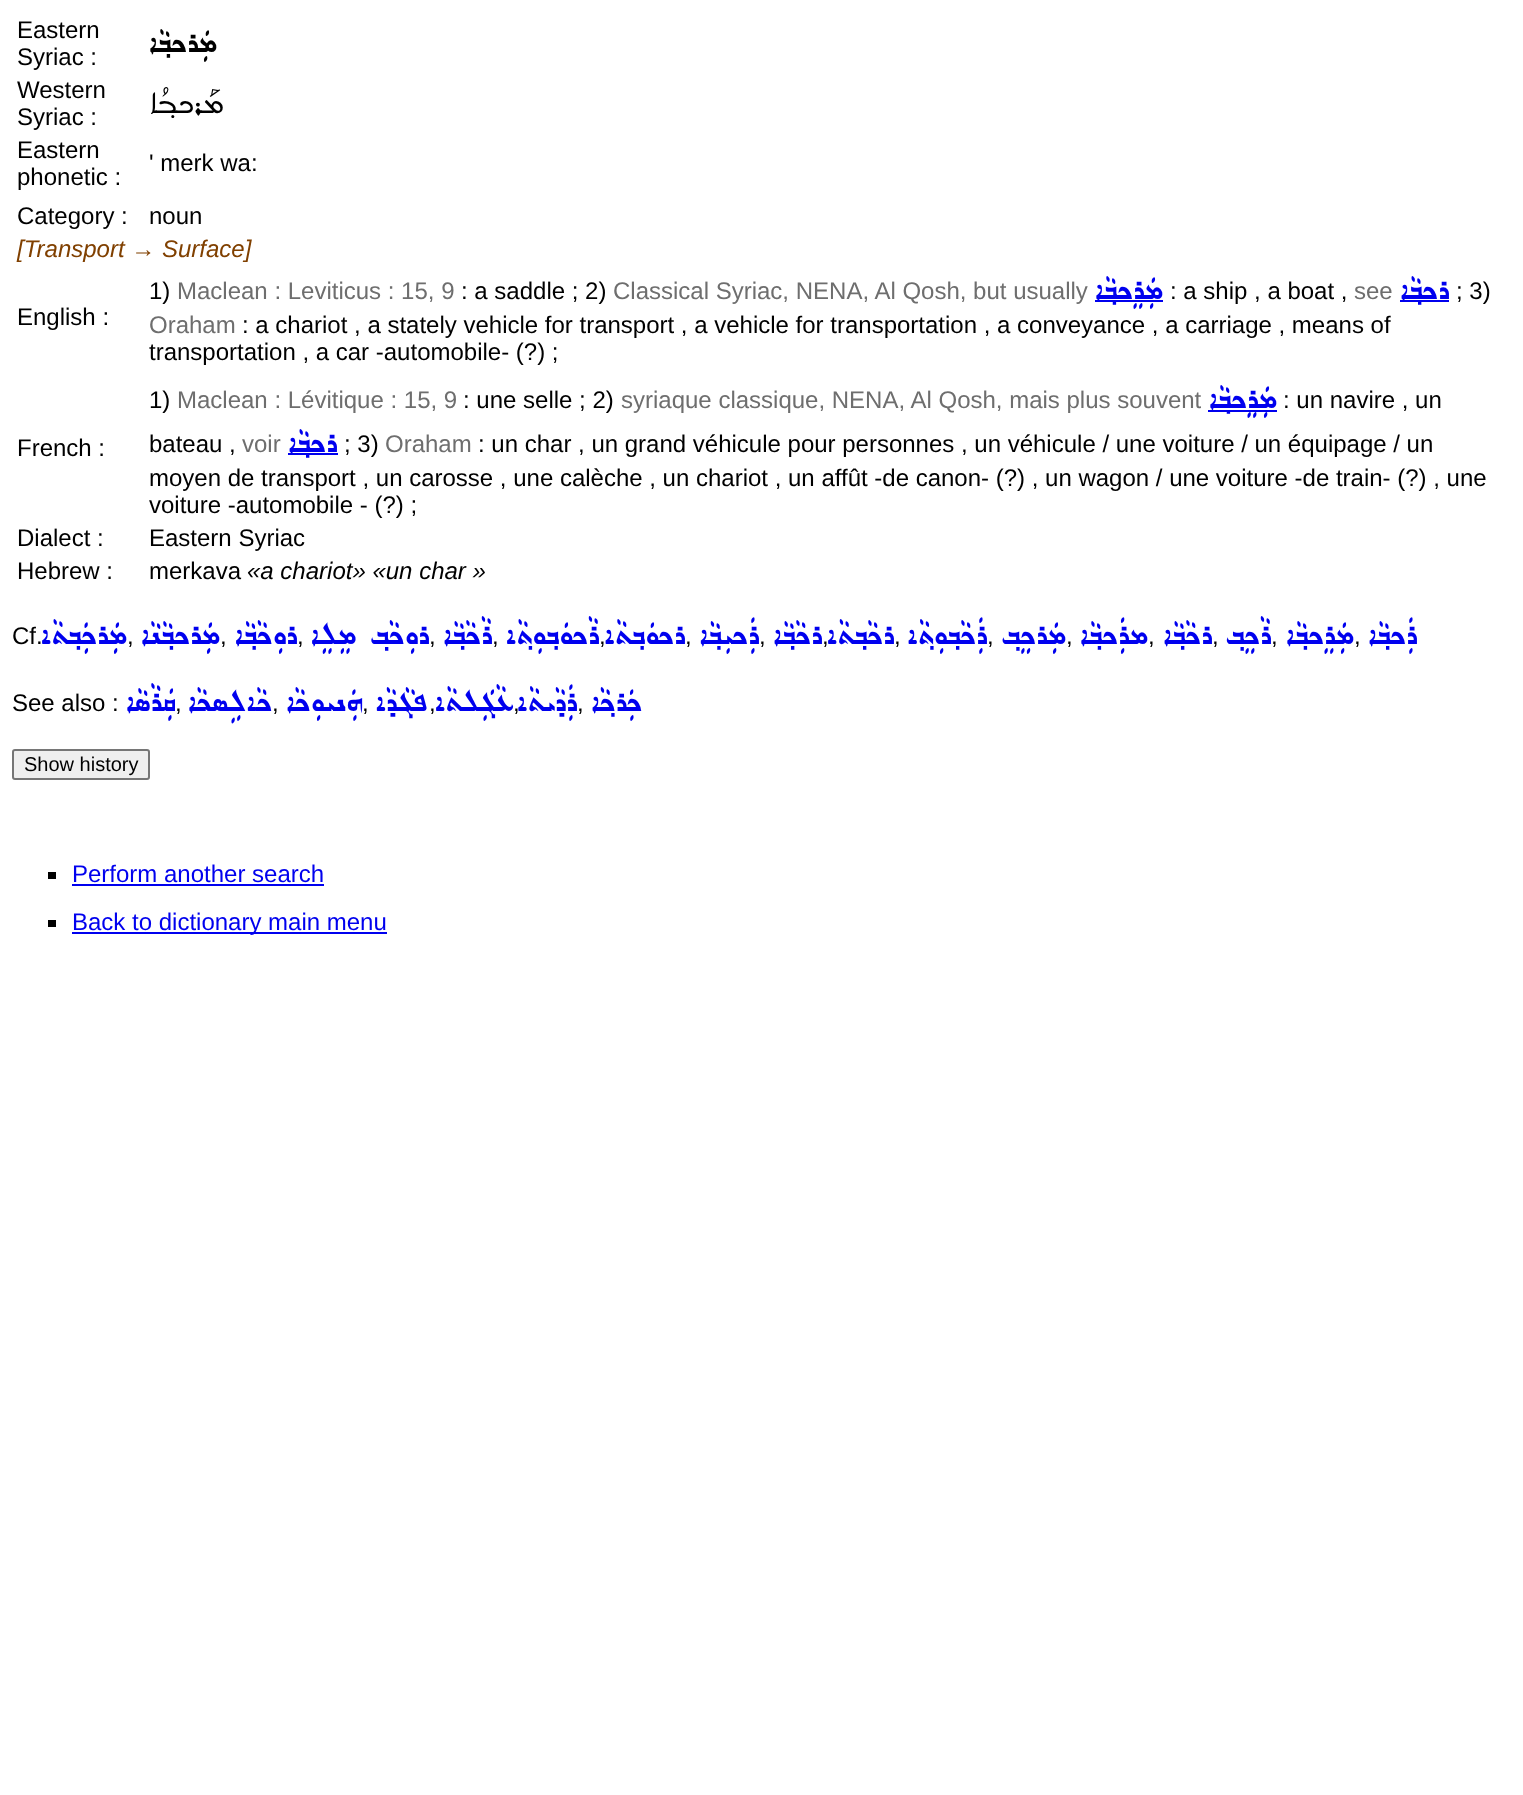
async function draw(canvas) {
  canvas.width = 1523;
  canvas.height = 1795;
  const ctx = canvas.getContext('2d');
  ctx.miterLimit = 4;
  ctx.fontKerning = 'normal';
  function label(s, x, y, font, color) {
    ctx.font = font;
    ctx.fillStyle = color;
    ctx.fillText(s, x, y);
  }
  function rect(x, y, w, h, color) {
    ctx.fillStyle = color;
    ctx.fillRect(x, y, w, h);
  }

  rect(0, 0, 1523, 1795, '#fff');
  label('Eastern', 17, 38, '24px Liberation Sans', '#000');
  label('Syriac :', 17, 65, '24px Liberation Sans', '#000');
  ctx.direction = 'rtl';
  label('ܡܲܪܟܒ݂ܵܐ', 217, 52, '38.5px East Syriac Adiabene', '#000');
  ctx.direction = 'ltr';
  label('Western', 17, 98, '24px Liberation Sans', '#000');
  label('Syriac :', 17, 125, '24px Liberation Sans', '#000');
  ctx.direction = 'rtl';
  label('ܡܰܪܟܒ݂ܳܐ', 223, 113, '41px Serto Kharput', '#000');
  ctx.direction = 'ltr';
  label('Eastern', 17, 158, '24px Liberation Sans', '#000');
  label('phonetic :', 17, 185, '24px Liberation Sans', '#000');
  label('\' merk wa:', 149, 171, '24px Liberation Sans', '#000');
  label('Category :', 17, 224, '24px Liberation Sans', '#000');
  label('noun', 149, 224, '24px Liberation Sans', '#000');
  label('[Transport → Surface]', 17, 257, 'italic 24px Liberation Sans', '#804000');
  label('English :', 17, 325, '24px Liberation Sans', '#000');
  label('1)', 149, 299, '24px Liberation Sans', '#000');
  label('Maclean : Leviticus : 15, 9', 177, 299, '24px Liberation Sans', '#6e6e6e');
  label(': a saddle ; 2)', 461, 299, '24px Liberation Sans', '#000');
  label('Classical Syriac, NENA, Al Qosh, but usually', 613, 299, '24px Liberation Sans', '#6e6e6e');
  rect(1095, 300, 68, 2, '#00e');
  ctx.direction = 'rtl';
  label('ܡܲܪܸܟܒ݂ܵܐ', 1163, 299, '38.5px East Syriac Adiabene', '#00e');
  ctx.direction = 'ltr';
  label(': a ship , a boat ,', 1170, 299, '24px Liberation Sans', '#000');
  label('see', 1354, 299, '24px Liberation Sans', '#6e6e6e');
  rect(1400, 300, 49, 2, '#00e');
  ctx.direction = 'rtl';
  label('ܪܟܒ݂ܵܐ', 1449, 299, '38.5px East Syriac Adiabene', '#00e');
  ctx.direction = 'ltr';
  label('; 3)', 1456, 299, '24px Liberation Sans', '#000');
  label('Oraham', 149, 333, '24px Liberation Sans', '#6e6e6e');
  label(': a chariot , a stately vehicle for transport , a vehicle for transportation , a conveyance , a carriage , means of', 242, 333, '24px Liberation Sans', '#000');
  label('transportation , a car -automobile- (?) ;', 149, 360, '24px Liberation Sans', '#000');
  label('French :', 17, 456, '24px Liberation Sans', '#000');
  label('1)', 149, 408, '24px Liberation Sans', '#000');
  label('Maclean : Lévitique : 15, 9', 177, 408, '24px Liberation Sans', '#6e6e6e');
  label(': une selle ; 2)', 463, 408, '24px Liberation Sans', '#000');
  label('syriaque classique, NENA, Al Qosh, mais plus souvent', 621, 408, '24px Liberation Sans', '#6e6e6e');
  rect(1208, 410, 69, 2, '#00e');
  ctx.direction = 'rtl';
  label('ܡܲܪܸܟܒ݂ܵܐ', 1277, 408, '38.5px East Syriac Adiabene', '#00e');
  ctx.direction = 'ltr';
  label(': un navire , un', 1283, 408, '24px Liberation Sans', '#000');
  label('bateau ,', 149, 452, '24px Liberation Sans', '#000');
  label('voir', 242, 452, '24px Liberation Sans', '#6e6e6e');
  rect(288, 453, 50, 2, '#00e');
  ctx.direction = 'rtl';
  label('ܪܟܒ݂ܵܐ', 337, 452, '38.5px East Syriac Adiabene', '#00e');
  ctx.direction = 'ltr';
  label('; 3)', 344, 452, '24px Liberation Sans', '#000');
  label('Oraham', 385, 452, '24px Liberation Sans', '#6e6e6e');
  label(': un char , un grand véhicule pour personnes , un véhicule / une voiture / un équipage / un', 478, 452, '24px Liberation Sans', '#000');
  label('moyen de transport , un carosse , une calèche , un chariot , un affût -de canon- (?) , un wagon / une voiture -de train- (?) , une', 149, 486, '24px Liberation Sans', '#000');
  label('voiture -automobile - (?) ;', 149, 513, '24px Liberation Sans', '#000');
  label('Dialect :', 17, 546, '24px Liberation Sans', '#000');
  label('Eastern Syriac', 149, 546, '24px Liberation Sans', '#000');
  label('Hebrew :', 17, 579, '24px Liberation Sans', '#000');
  label('merkava', 149, 579, '24px Liberation Sans', '#000');
  label('«a chariot» «un char »', 247, 579, 'italic 24px Liberation Sans', '#000');
  label('Cf.', 12, 644, '24px Liberation Sans', '#000');
  ctx.direction = 'rtl';
  label('ܡܲܪܟܲܒ݂ܬܵܐ', 127, 644, '38.5px East Syriac Adiabene', '#00e');
  ctx.direction = 'ltr';
  label(',', 127, 644, '24px Liberation Sans', '#000');
  ctx.direction = 'rtl';
  label('ܡܲܪܟܒ݂ܵܢܵܐ', 220, 644, '38.5px East Syriac Adiabene', '#00e');
  ctx.direction = 'ltr';
  label(',', 220, 644, '24px Liberation Sans', '#000');
  ctx.direction = 'rtl';
  label('ܪܘܼܟܵܒ݂ܵܐ', 297, 644, '38.5px East Syriac Adiabene', '#00e');
  ctx.direction = 'ltr';
  label(',', 297, 644, '24px Liberation Sans', '#000');
  ctx.direction = 'rtl';
  label('ܪܘܼܟܵܒ݂ ܡܸܠܸܐ', 429, 644, '38.5px East Syriac Adiabene', '#00e');
  ctx.direction = 'ltr';
  label(',', 429, 644, '24px Liberation Sans', '#000');
  ctx.direction = 'rtl';
  label('ܪܵܟܵܒ݂ܵܐ', 492, 644, '38.5px East Syriac Adiabene', '#00e');
  ctx.direction = 'ltr';
  label(',', 492, 644, '24px Liberation Sans', '#000');
  ctx.direction = 'rtl';
  label('ܪܵܟܘܿܒ݂ܘܼܬ݂ܵܐ', 599, 644, '38.5px East Syriac Adiabene', '#00e');
  ctx.direction = 'ltr';
  label(',', 599, 644, '24px Liberation Sans', '#000');
  ctx.direction = 'rtl';
  label('ܪܟܘܿܒ݂ܬܵܐ', 685, 644, '38.5px East Syriac Adiabene', '#00e');
  ctx.direction = 'ltr';
  label(',', 685, 644, '24px Liberation Sans', '#000');
  ctx.direction = 'rtl';
  label('ܪܲܟܝܼܒ݂ܵܐ', 759, 644, '38.5px East Syriac Adiabene', '#00e');
  ctx.direction = 'ltr';
  label(',', 759, 644, '24px Liberation Sans', '#000');
  ctx.direction = 'rtl';
  label('ܪܟܵܒ݂ܵܐ', 822, 644, '38.5px East Syriac Adiabene', '#00e');
  ctx.direction = 'ltr';
  label(',', 822, 644, '24px Liberation Sans', '#000');
  ctx.direction = 'rtl';
  label('ܪܟܵܒ݂ܬܵܐ', 894, 644, '38.5px East Syriac Adiabene', '#00e');
  ctx.direction = 'ltr';
  label(',', 894, 644, '24px Liberation Sans', '#000');
  ctx.direction = 'rtl';
  label('ܪܲܟܵܒ݂ܘܼܬ݂ܵܐ', 987, 644, '38.5px East Syriac Adiabene', '#00e');
  ctx.direction = 'ltr';
  label(',', 987, 644, '24px Liberation Sans', '#000');
  ctx.direction = 'rtl';
  label('ܡܲܪܟܸܒ݂', 1066, 644, '38.5px East Syriac Adiabene', '#00e');
  ctx.direction = 'ltr';
  label(',', 1066, 644, '24px Liberation Sans', '#000');
  ctx.direction = 'rtl';
  label('ܡܪܲܟܒ݂ܵܐ', 1148, 644, '38.5px East Syriac Adiabene', '#00e');
  ctx.direction = 'ltr';
  label(',', 1148, 644, '24px Liberation Sans', '#000');
  ctx.direction = 'rtl';
  label('ܪܟܵܒ݂ܵܐ', 1212, 644, '38.5px East Syriac Adiabene', '#00e');
  ctx.direction = 'ltr';
  label(',', 1212, 644, '24px Liberation Sans', '#000');
  ctx.direction = 'rtl';
  label('ܪܵܟܸܒ݂', 1271, 644, '38.5px East Syriac Adiabene', '#00e');
  ctx.direction = 'ltr';
  label(',', 1271, 644, '24px Liberation Sans', '#000');
  ctx.direction = 'rtl';
  label('ܡܲܪܸܟܒ݂ܵܐ', 1354, 644, '38.5px East Syriac Adiabene', '#00e');
  ctx.direction = 'ltr';
  label(',', 1354, 644, '24px Liberation Sans', '#000');
  ctx.direction = 'rtl';
  label('ܪܲܟܒ݂ܵܐ', 1417, 644, '38.5px East Syriac Adiabene', '#00e');
  ctx.direction = 'ltr';
  label('See also :', 12, 711, '24px Liberation Sans', '#000');
  ctx.direction = 'rtl';
  label('ܩܲܪܵܣܵܐ', 175, 711, '38.5px East Syriac Adiabene', '#00e');
  ctx.direction = 'ltr';
  label(',', 175, 711, '24px Liberation Sans', '#000');
  ctx.direction = 'rtl';
  label('ܟܵܐܠܹܣܟܵܐ', 272, 711, '38.5px East Syriac Adiabene', '#00e');
  ctx.direction = 'ltr';
  label(',', 272, 711, '24px Liberation Sans', '#000');
  ctx.direction = 'rtl';
  label('ܗܲܢܝܘܼܟܵܐ', 362, 711, '38.5px East Syriac Adiabene', '#00e');
  ctx.direction = 'ltr';
  label(',', 362, 711, '24px Liberation Sans', '#000');
  ctx.direction = 'rtl';
  label('ܦܓܵܕܵܐ', 429, 711, '38.5px East Syriac Adiabene', '#00e');
  ctx.direction = 'ltr';
  label(',', 429, 711, '24px Liberation Sans', '#000');
  ctx.direction = 'rtl';
  label('ܥܵܓܲܠܬܵܐ', 513, 711, '38.5px East Syriac Adiabene', '#00e');
  ctx.direction = 'ltr';
  label(',', 513, 711, '24px Liberation Sans', '#000');
  ctx.direction = 'rtl';
  label('ܪܲܕܵܝܬܵܐ', 577, 711, '38.5px East Syriac Adiabene', '#00e');
  ctx.direction = 'ltr';
  label(',', 577, 711, '24px Liberation Sans', '#000');
  ctx.direction = 'rtl';
  label('ܟܲܪܟ݂ܵܐ', 642, 711, '38.5px East Syriac Adiabene', '#00e');
  ctx.fillStyle = '#efefef';
  ctx.beginPath();
  ctx.roundRect(13, 750, 136, 29, 2);
  ctx.fill();
  ctx.strokeStyle = '#767676';
  ctx.lineWidth = 2;
  ctx.stroke();
  ctx.direction = 'ltr';
  label('Show history', 24, 771, '20px Liberation Sans', '#000');
  rect(48, 872, 8, 7, '#000');
  label('Perform another search', 72, 882, '24px Liberation Sans', '#00e');
  rect(72, 884, 252, 2, '#00e');
  rect(48, 920, 8, 7, '#000');
  rect(72, 932, 315, 2, '#00e');
  label('Back to dictionary main menu', 72, 930, '24px Liberation Sans', '#00e');
}

draw(document.querySelector('canvas'));
